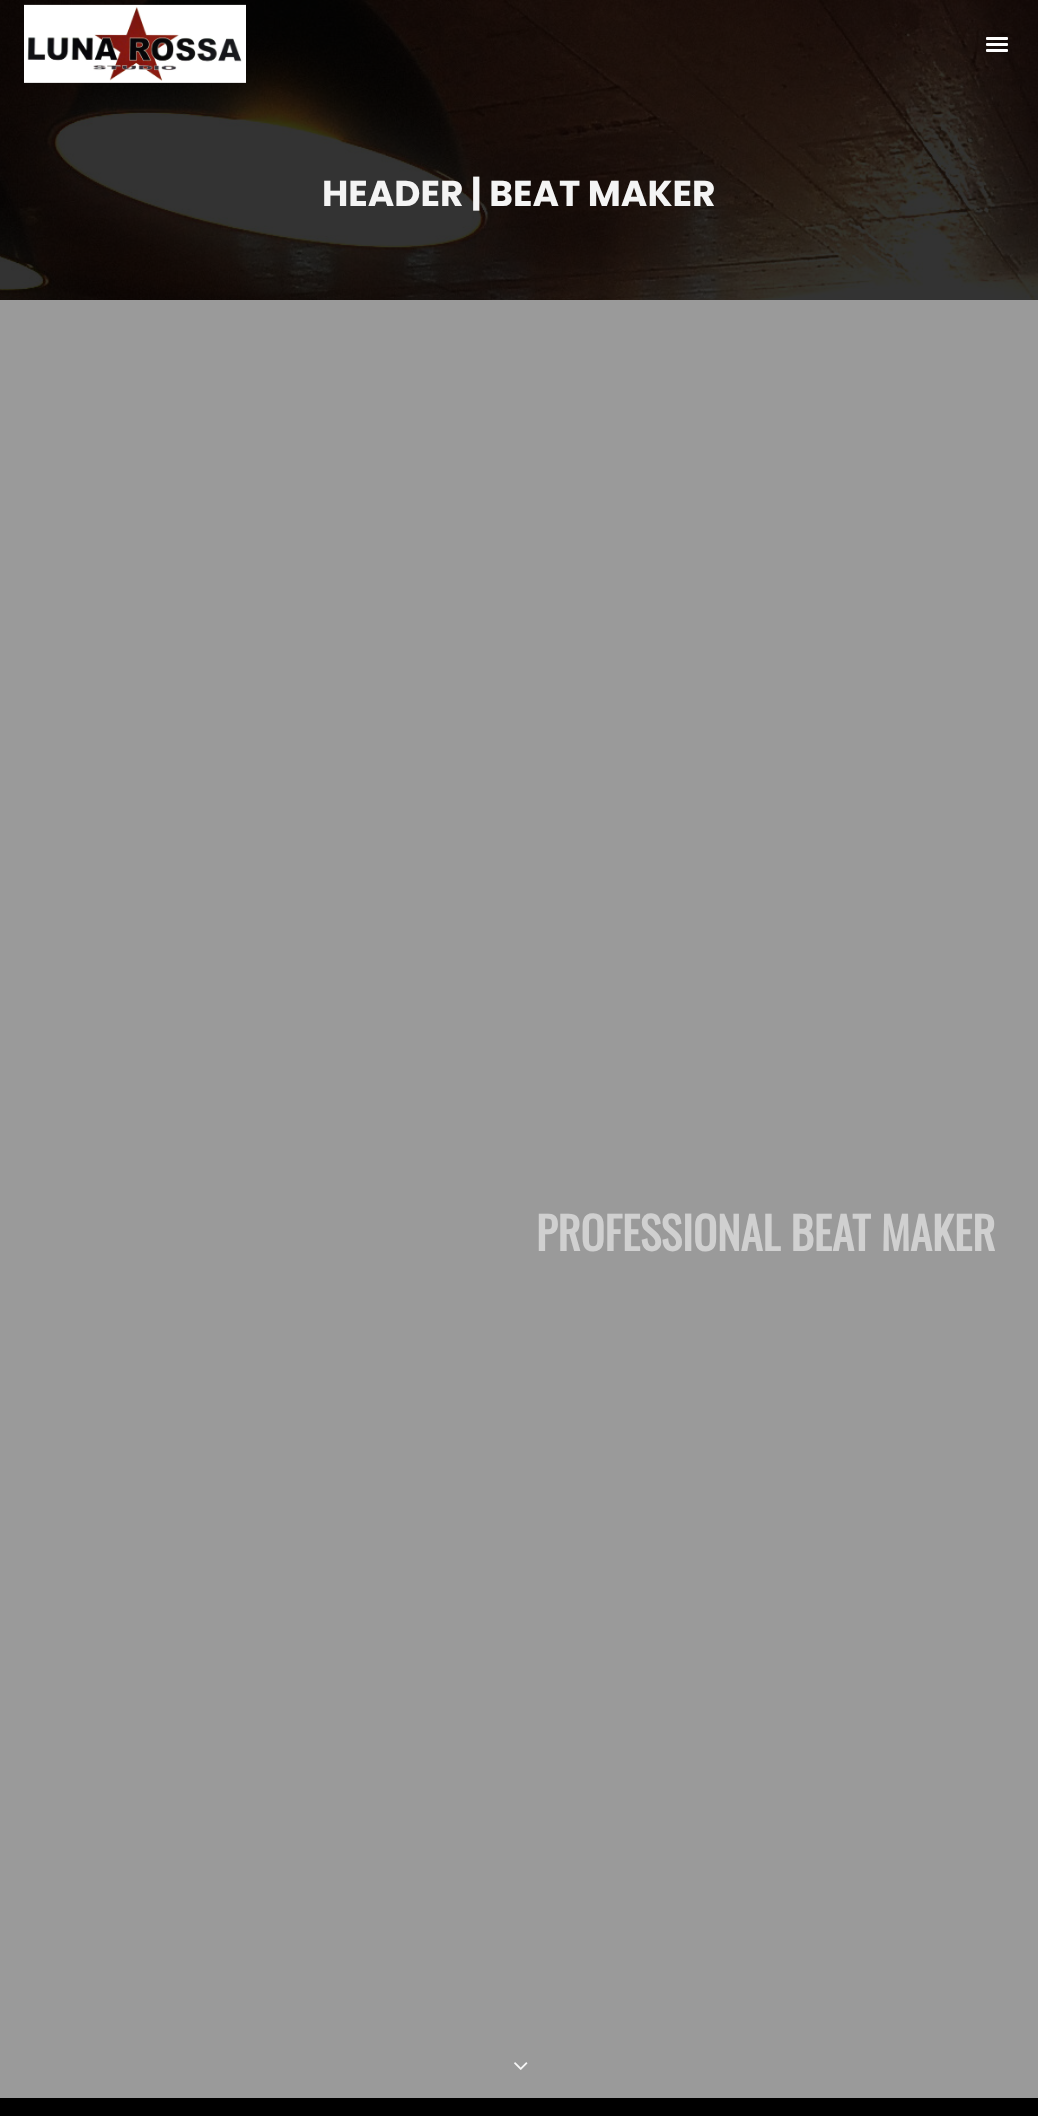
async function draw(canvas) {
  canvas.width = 1038;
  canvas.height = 2116;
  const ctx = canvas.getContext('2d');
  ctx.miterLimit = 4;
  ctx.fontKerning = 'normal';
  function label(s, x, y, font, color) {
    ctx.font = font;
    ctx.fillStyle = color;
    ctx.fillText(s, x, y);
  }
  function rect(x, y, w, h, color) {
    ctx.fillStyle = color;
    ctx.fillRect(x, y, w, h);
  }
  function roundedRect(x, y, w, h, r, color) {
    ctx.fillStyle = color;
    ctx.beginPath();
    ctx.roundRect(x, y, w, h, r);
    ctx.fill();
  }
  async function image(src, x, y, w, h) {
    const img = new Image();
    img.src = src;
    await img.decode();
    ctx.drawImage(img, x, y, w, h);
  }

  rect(0, 0, 1038, 2116, '#fff');
  await image('assets/img2.png', 0, 0, 1038, 300);
  await image('assets/img1.png', 24, 4, 222, 79);
  roundedRect(986, 37, 22, 3, 1, '#fff');
  roundedRect(986, 43, 22, 3, 1, '#fff');
  roundedRect(986, 49, 22, 3, 1, '#fff');
  label('HEADER | BEAT MAKER', 322, 206, 'bold 36px Poppins', '#f4f4f4');
  rect(0, 300, 1038, 1798, '#9a9a9a');
  label('PROFESSIONAL BEAT MAKER', 536, 1251, 'bold 44.6px Oswald', '#d0d0d0');
  await image('assets/img3.png', 514, 2062, 14, 8);
  rect(0, 2098, 1038, 18, '#000');
}

draw(document.querySelector('canvas'));
